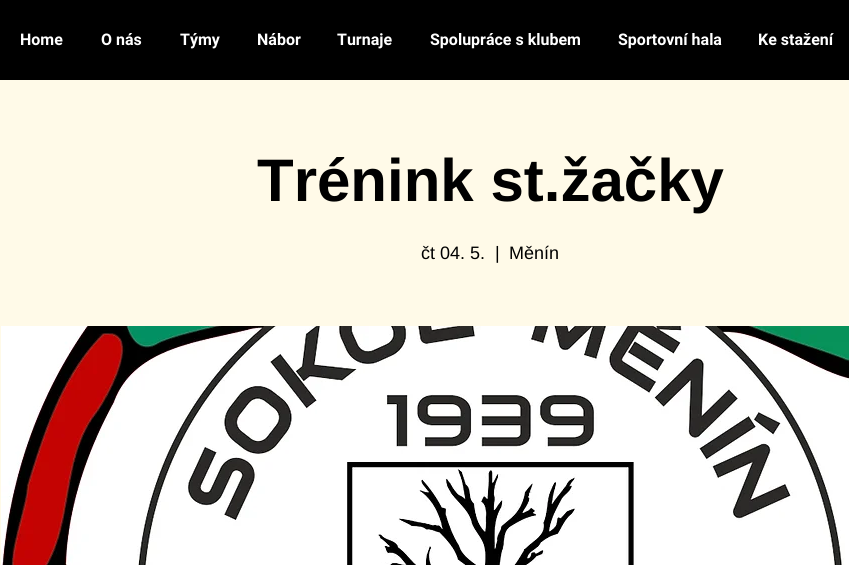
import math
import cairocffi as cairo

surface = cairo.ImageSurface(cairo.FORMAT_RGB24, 849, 565)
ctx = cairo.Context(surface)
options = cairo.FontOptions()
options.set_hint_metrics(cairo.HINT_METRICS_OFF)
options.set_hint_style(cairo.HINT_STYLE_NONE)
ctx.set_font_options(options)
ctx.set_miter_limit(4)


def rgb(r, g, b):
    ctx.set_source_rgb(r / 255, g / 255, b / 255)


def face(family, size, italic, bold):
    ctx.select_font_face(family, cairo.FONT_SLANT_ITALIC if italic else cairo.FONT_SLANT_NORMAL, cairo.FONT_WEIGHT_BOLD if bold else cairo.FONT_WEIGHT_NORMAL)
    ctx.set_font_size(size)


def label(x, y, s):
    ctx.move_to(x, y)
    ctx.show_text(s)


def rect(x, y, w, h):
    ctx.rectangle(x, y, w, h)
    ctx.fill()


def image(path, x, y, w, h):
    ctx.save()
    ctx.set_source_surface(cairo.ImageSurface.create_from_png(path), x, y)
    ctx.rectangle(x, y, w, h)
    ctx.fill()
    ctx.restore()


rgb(255, 250, 232)
ctx.paint()
rgb(0, 0, 0)
rect(0, 0, 849, 80)
face('Roboto', 16, 0, 1)
rgb(255, 255, 255)
label(20, 45, 'Home')
label(101, 45, 'O nás')
label(180, 45, 'Týmy')
label(257, 45, 'Nábor')
label(337, 45, 'Turnaje')
label(430, 45, 'Spolupráce s klubem')
label(618, 45, 'Sportovní hala')
label(758, 45, 'Ke stažení')
face('Liberation Sans', 60, 0, 1)
rgb(0, 0, 0)
label(257, 201, 'Trénink st.žačky')
face('Liberation Sans', 18, 0, 0)
label(421, 259, 'čt 04. 5.')
label(495, 259, '|')
label(509, 259, 'Měnín')
image('image0.png', 1, 326, 848, 239)
surface.write_to_png('render.png')
